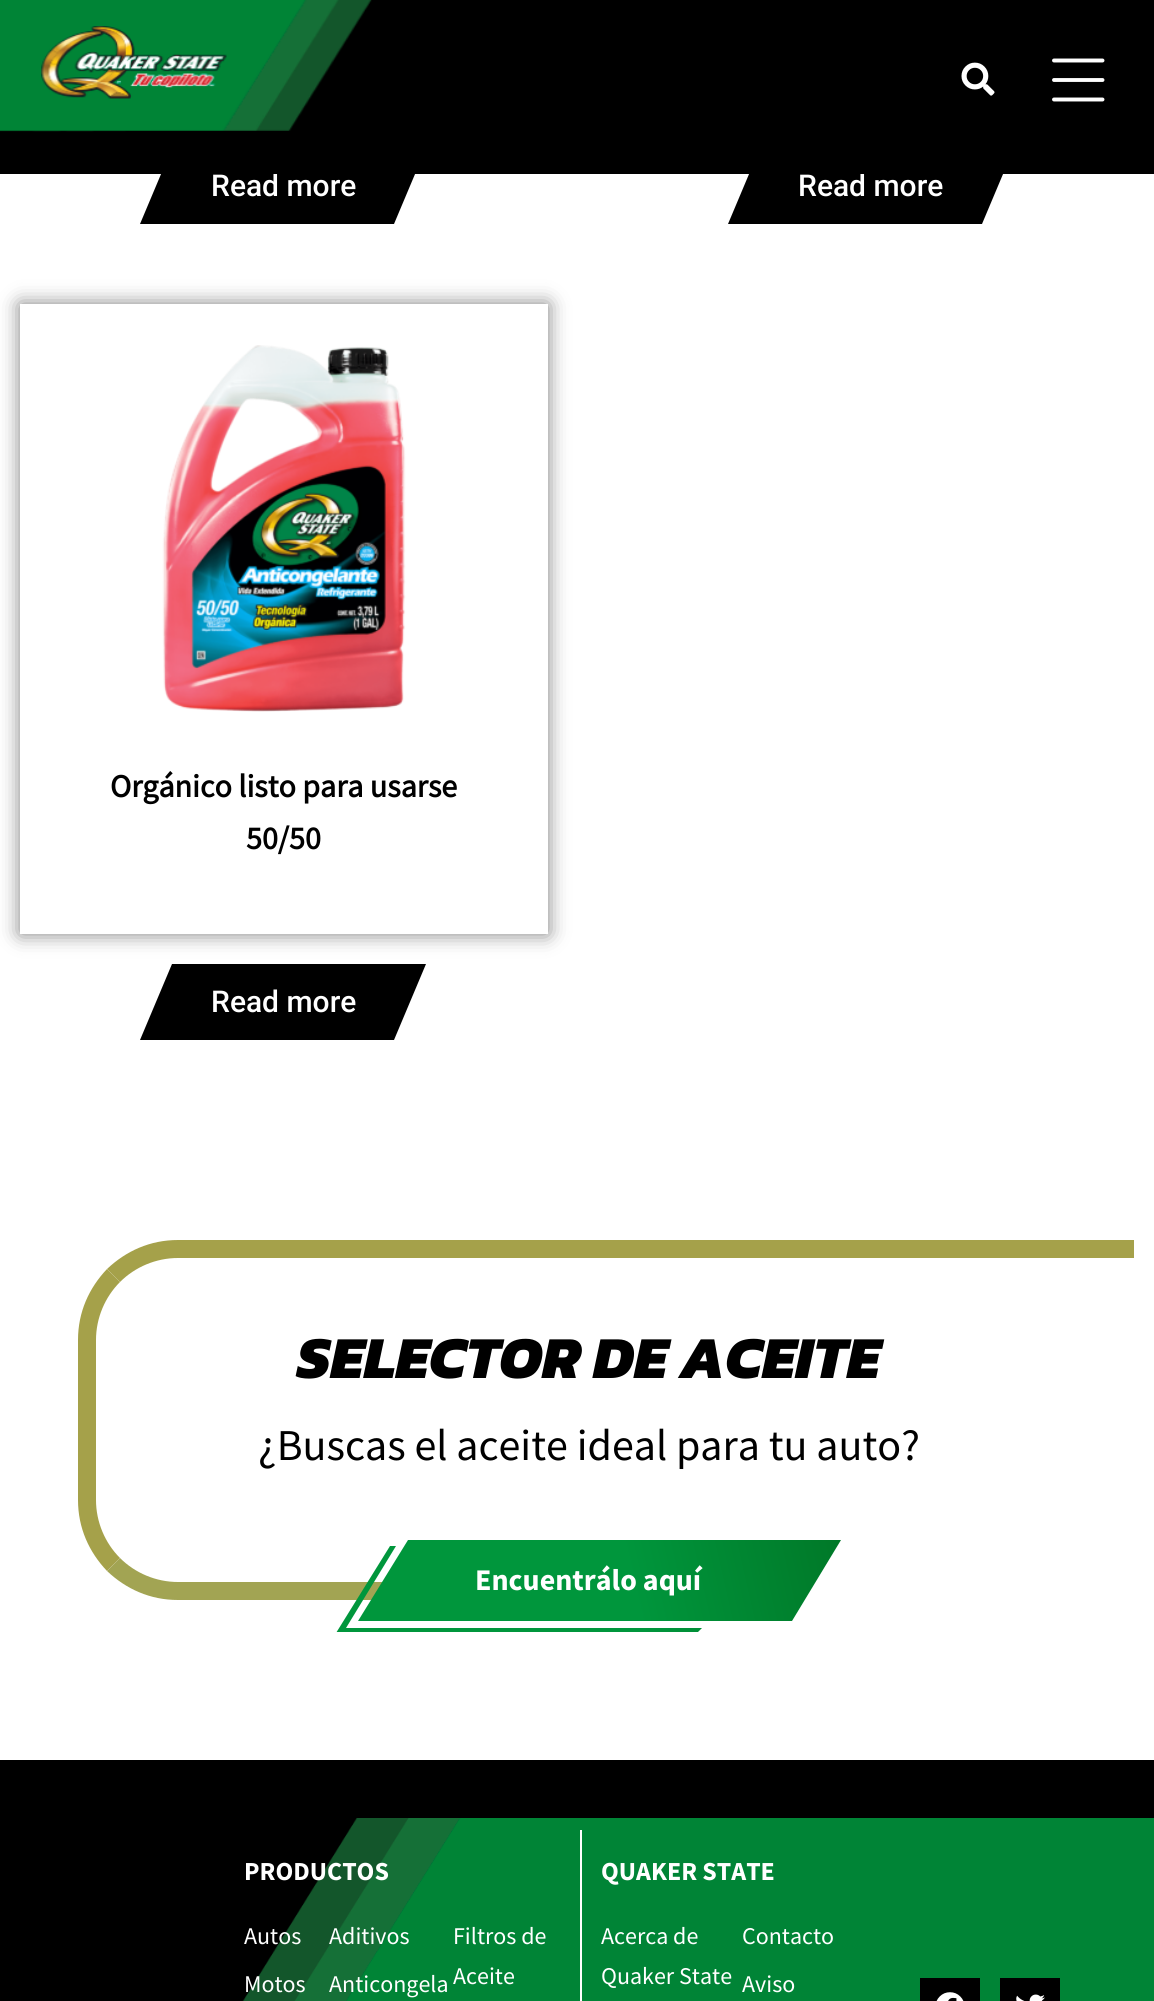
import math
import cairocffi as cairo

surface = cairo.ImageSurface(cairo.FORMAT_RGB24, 1154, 2001)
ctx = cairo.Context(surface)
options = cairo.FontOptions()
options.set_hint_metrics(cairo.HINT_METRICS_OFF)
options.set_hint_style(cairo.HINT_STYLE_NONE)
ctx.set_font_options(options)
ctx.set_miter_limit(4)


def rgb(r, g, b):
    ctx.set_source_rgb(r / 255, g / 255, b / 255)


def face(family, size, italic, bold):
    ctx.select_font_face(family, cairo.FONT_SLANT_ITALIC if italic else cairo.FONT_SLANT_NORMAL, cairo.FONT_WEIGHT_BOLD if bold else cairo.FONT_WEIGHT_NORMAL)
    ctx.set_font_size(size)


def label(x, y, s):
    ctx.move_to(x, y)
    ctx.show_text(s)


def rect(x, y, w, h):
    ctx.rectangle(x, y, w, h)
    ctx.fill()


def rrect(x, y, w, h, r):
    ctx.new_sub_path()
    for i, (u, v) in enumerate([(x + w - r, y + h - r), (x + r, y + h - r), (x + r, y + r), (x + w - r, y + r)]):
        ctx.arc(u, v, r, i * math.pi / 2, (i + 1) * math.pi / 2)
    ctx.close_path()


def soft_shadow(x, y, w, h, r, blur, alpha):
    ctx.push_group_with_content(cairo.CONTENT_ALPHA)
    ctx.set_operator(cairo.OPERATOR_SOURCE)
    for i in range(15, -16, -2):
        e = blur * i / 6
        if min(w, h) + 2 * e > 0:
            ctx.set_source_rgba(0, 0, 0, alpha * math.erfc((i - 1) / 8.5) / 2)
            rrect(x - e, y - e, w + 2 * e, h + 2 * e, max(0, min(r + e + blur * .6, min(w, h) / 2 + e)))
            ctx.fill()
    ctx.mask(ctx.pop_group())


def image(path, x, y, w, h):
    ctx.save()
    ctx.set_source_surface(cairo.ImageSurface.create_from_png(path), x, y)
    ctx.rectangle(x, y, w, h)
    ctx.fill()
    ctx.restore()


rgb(255, 255, 255)
ctx.paint()
rgb(0, 0, 0)
ctx.new_path()
ctx.move_to(172, 224)
ctx.line_to(140, 224)
ctx.line_to(172, 148)
ctx.close_path()
ctx.fill()
rect(172, 174, 222, 50)
face('Roboto Medium', 30, 0, 0)
rgb(255, 255, 255)
label(211, 196, 'Read more')
rgb(0, 0, 0)
ctx.new_path()
ctx.move_to(394, 148)
ctx.line_to(426, 148)
ctx.line_to(394, 224)
ctx.close_path()
ctx.fill()
ctx.new_path()
ctx.move_to(760, 224)
ctx.line_to(728, 224)
ctx.line_to(760, 148)
ctx.close_path()
ctx.fill()
rect(760, 174, 222, 50)
rgb(255, 255, 255)
label(798, 196, 'Read more')
rgb(0, 0, 0)
ctx.new_path()
ctx.move_to(982, 148)
ctx.line_to(1014, 148)
ctx.line_to(982, 224)
ctx.close_path()
ctx.fill()
rect(0, 0, 1154, 174)
image('image0.png', 0, 0, 372, 132)
image('image1.png', 961, 62, 34, 34)
ctx.new_path()
ctx.move_to(1054, 99.5)
ctx.line_to(1102.5, 99.5)
ctx.move_to(1054, 80)
ctx.line_to(1102.5, 80)
ctx.move_to(1054, 60.5)
ctx.line_to(1102.5, 60.5)
rgb(255, 255, 255)
ctx.set_line_width(3.9)
ctx.set_line_cap(cairo.LINE_CAP_ROUND)
ctx.stroke()
ctx.save()
ctx.set_fill_rule(cairo.FILL_RULE_EVEN_ODD)
ctx.new_path()
ctx.move_to(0, 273)
ctx.line_to(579, 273)
ctx.line_to(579, 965)
ctx.line_to(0, 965)
ctx.close_path()
ctx.move_to(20, 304)
ctx.line_to(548, 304)
ctx.line_to(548, 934)
ctx.line_to(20, 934)
ctx.close_path()
ctx.clip()
rgb(0, 0, 0)
soft_shadow(20, 304, 528, 630, 0, 10, 0.5)
ctx.restore()
image('image2.png', 162, 345, 244, 367)
face('Source Sans Pro', 32, 0, 1)
rgb(0, 0, 0)
label(110, 797, 'Orgánico listo para usarse')
label(246, 849, '50/50')
rect(172, 964, 222, 76)
ctx.new_path()
ctx.move_to(172, 1040)
ctx.line_to(140, 1040)
ctx.line_to(172, 964)
ctx.close_path()
ctx.fill()
face('Roboto Medium', 30, 0, 0)
rgb(255, 255, 255)
label(211, 1012, 'Read more')
rgb(0, 0, 0)
ctx.new_path()
ctx.move_to(394, 964)
ctx.line_to(426, 964)
ctx.line_to(394, 1040)
ctx.close_path()
ctx.fill()
rgb(165, 161, 74)
ctx.new_path()
ctx.move_to(178, 1240)
ctx.curve_to(150, 1240, 126, 1251, 107, 1269)
ctx.line_to(120, 1282)
ctx.curve_to(135, 1267, 156, 1258, 178, 1258)
ctx.line_to(1134, 1258)
ctx.line_to(1134, 1240)
ctx.close_path()
ctx.fill()
rgb(162, 164, 83)
ctx.new_path()
ctx.move_to(1134, 1600)
ctx.line_to(1134, 1582)
ctx.line_to(178, 1582)
ctx.curve_to(156, 1582, 135, 1573, 120, 1558)
ctx.line_to(107, 1571)
ctx.curve_to(126, 1589, 150, 1600, 178, 1600)
ctx.close_path()
ctx.fill()
rgb(165, 161, 74)
ctx.new_path()
ctx.move_to(78, 1340)
ctx.line_to(78, 1500)
ctx.curve_to(78, 1528, 89, 1552, 107, 1571)
ctx.line_to(120, 1558)
ctx.curve_to(105, 1543, 96, 1522, 96, 1500)
ctx.line_to(96, 1340)
ctx.curve_to(96, 1318, 105, 1297, 120, 1282)
ctx.line_to(107, 1269)
ctx.curve_to(89, 1288, 78, 1312, 78, 1340)
ctx.close_path()
ctx.fill()
face('Kanit ExtraBold', 60, 1, 0)
rgb(0, 0, 0)
label(297, 1378, 'SELECTOR DE ACEITE')
face('Source Sans Pro', 44, 0, 0)
label(258, 1460, '¿Buscas el aceite ideal para tu auto?')
rgb(255, 255, 255)
rect(803, 1582, 331, 18)
ctx.save()
ctx.rectangle(336, 1540, 506, 92)
ctx.clip()
gradient = cairo.LinearGradient(896, 1540, 636, 1599)
gradient.add_color_stop_rgba(0, 0, 0.443, 0.137, 1)
gradient.add_color_stop_rgba(1, 0, 0.588, 0.235, 1)
ctx.set_source(gradient)
ctx.set_fill_rule(cairo.FILL_RULE_EVEN_ODD)
ctx.new_path()
ctx.move_to(841, 1540)
ctx.line_to(408, 1540)
ctx.line_to(358, 1621)
ctx.line_to(792, 1621)
ctx.close_path()
ctx.move_to(390, 1546)
ctx.line_to(396, 1546)
ctx.line_to(346, 1628)
ctx.line_to(702, 1628)
ctx.line_to(697, 1633)
ctx.line_to(336, 1633)
ctx.close_path()
ctx.fill()
ctx.restore()
face('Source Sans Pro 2', 30, 0, 1)
label(475, 1590, 'Encuentrálo aquí')
rgb(0, 0, 0)
rect(0, 1760, 1154, 241)
image('image3.png', 242, 1818, 912, 183)
rgb(255, 255, 255)
rect(580, 1830, 2, 171)
face('Source Sans Pro 2', 26, 0, 1)
label(244, 1880, 'PRODUCTOS')
face('Source Sans Pro', 24, 0, 0)
label(244, 1944, 'Autos')
label(244, 1992, 'Motos')
label(329, 1944, 'Aditivos')
label(329, 1992, 'Anticongela')
label(453, 1944, 'Filtros de')
label(453, 1984, 'Aceite')
face('Source Sans Pro 2', 26, 0, 1)
label(601, 1880, 'QUAKER STATE')
face('Source Sans Pro', 24, 0, 0)
label(601, 1944, 'Acerca de')
label(601, 1984, 'Quaker State')
label(742, 1944, 'Contacto')
label(742, 1992, 'Aviso')
rgb(0, 0, 0)
rect(920, 1978, 60, 23)
image('image4.png', 936, 1992, 28, 9)
rect(1000, 1978, 60, 23)
image('image5.png', 1016, 1994, 29, 7)
surface.write_to_png('render.png')
